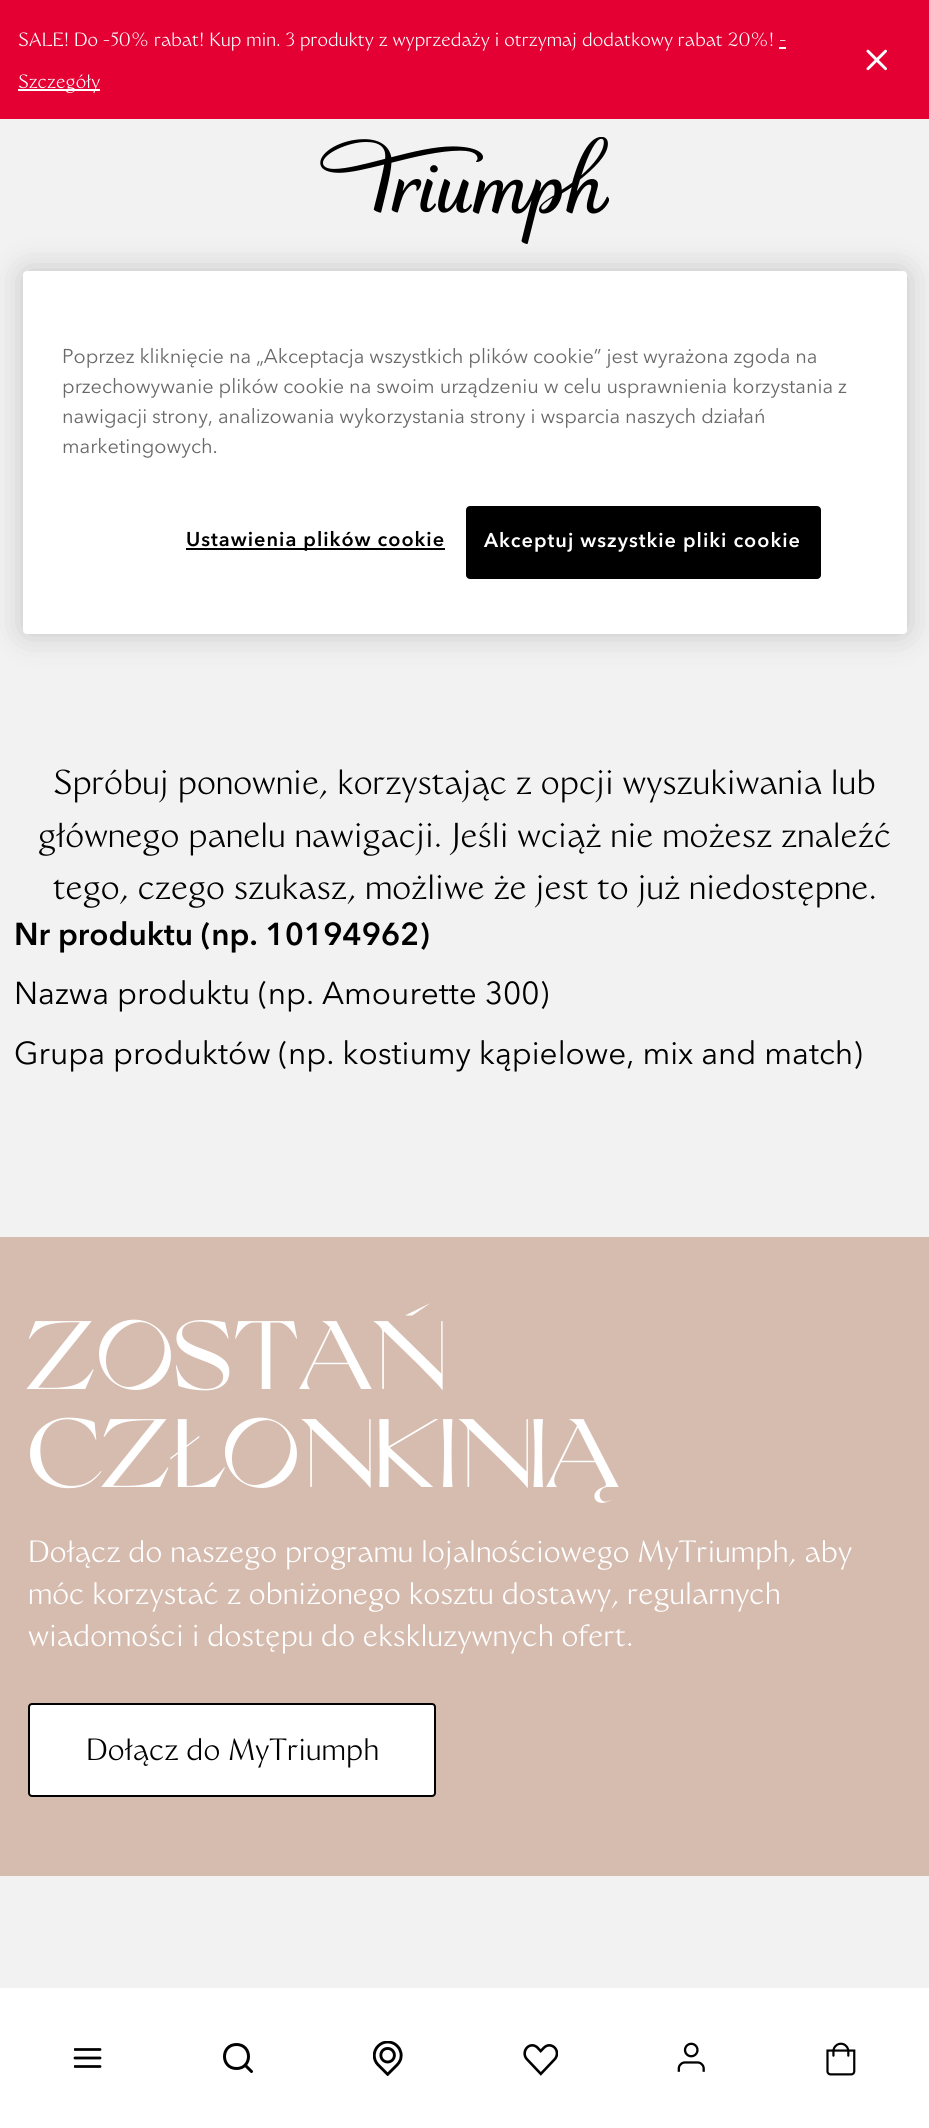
import math
import cairocffi as cairo

surface = cairo.ImageSurface(cairo.FORMAT_RGB24, 929, 2128)
ctx = cairo.Context(surface)
options = cairo.FontOptions()
options.set_hint_metrics(cairo.HINT_METRICS_OFF)
options.set_hint_style(cairo.HINT_STYLE_NONE)
ctx.set_font_options(options)
ctx.set_miter_limit(4)


def rgb(r, g, b):
    ctx.set_source_rgb(r / 255, g / 255, b / 255)


def face(family, size, italic, bold):
    ctx.select_font_face(family, cairo.FONT_SLANT_ITALIC if italic else cairo.FONT_SLANT_NORMAL, cairo.FONT_WEIGHT_BOLD if bold else cairo.FONT_WEIGHT_NORMAL)
    ctx.set_font_size(size)


def label(x, y, s):
    ctx.move_to(x, y)
    ctx.show_text(s)


def tracked(x, y, s, letter, word):
    ctx.move_to(x, y)
    for ch in s:
        ctx.show_text(ch)
        ctx.rel_move_to(letter + word * (ch == ' '), 0)


def rect(x, y, w, h):
    ctx.rectangle(x, y, w, h)
    ctx.fill()


def rrect(x, y, w, h, r):
    ctx.new_sub_path()
    for i, (u, v) in enumerate([(x + w - r, y + h - r), (x + r, y + h - r), (x + r, y + r), (x + w - r, y + r)]):
        ctx.arc(u, v, r, i * math.pi / 2, (i + 1) * math.pi / 2)
    ctx.close_path()


def soft_shadow(x, y, w, h, r, blur, alpha):
    ctx.push_group_with_content(cairo.CONTENT_ALPHA)
    ctx.set_operator(cairo.OPERATOR_SOURCE)
    for i in range(15, -16, -2):
        e = blur * i / 6
        if min(w, h) + 2 * e > 0:
            ctx.set_source_rgba(0, 0, 0, alpha * math.erfc((i - 1) / 8.5) / 2)
            rrect(x - e, y - e, w + 2 * e, h + 2 * e, max(0, min(r + e + blur * .6, min(w, h) / 2 + e)))
            ctx.fill()
    ctx.mask(ctx.pop_group())


def image(path, x, y, w, h):
    ctx.save()
    ctx.set_source_surface(cairo.ImageSurface.create_from_png(path), x, y)
    ctx.rectangle(x, y, w, h)
    ctx.fill()
    ctx.restore()


rgb(242, 242, 242)
ctx.paint()
rgb(228, 0, 50)
rect(0, 0, 929, 119)
face('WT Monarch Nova', 17.5, 0, 0)
rgb(255, 255, 255)
label(18, 46, 'SALE! Do -50% rabat! Kup min. 3 produkty z wyprzedaży i otrzymaj dodatkowy rabat 20%! -')
rect(18, 89, 82, 2)
label(18, 88, 'Szczegóły')
rect(779, 47, 7, 2)
image('image0.png', 866, 49, 21, 22)
image('image1.png', 320, 137, 289, 107)
rect(0, 1988, 929, 140)
ctx.new_path()
ctx.move_to(75, 2058)
ctx.line_to(100, 2058)
rgb(0, 0, 0)
ctx.set_line_width(2.8)
ctx.set_line_cap(cairo.LINE_CAP_ROUND)
ctx.set_line_join(cairo.LINE_JOIN_ROUND)
ctx.stroke()
ctx.save()
ctx.rectangle(74, 2048, 28, 21)
ctx.clip()
ctx.new_path()
ctx.move_to(75, 2049.5)
ctx.line_to(100, 2049.5)
ctx.move_to(75, 2066.5)
ctx.line_to(100, 2066.5)
ctx.stroke()
ctx.restore()
ctx.new_path()
ctx.move_to(236.5, 2068.5)
ctx.curve_to(252.5, 2068.5, 252.5, 2044.5, 236.5, 2044.5)
ctx.curve_to(220.5, 2044.5, 220.5, 2068.5, 236.5, 2068.5)
ctx.close_path()
ctx.move_to(251.5, 2071.5)
ctx.line_to(245, 2065)
ctx.set_line_width(3)
ctx.stroke()
image('image2.png', 373, 2041, 30, 35)
image('image3.png', 523, 2044, 35, 32)
image('image4.png', 677, 2042, 28, 30)
image('image5.png', 826, 2042, 30, 34)
face('WT Monarch Nova', 31.5, 0, 0)
label(53, 794, 'Spróbuj ponownie, korzystając z opcji wyszukiwania lub')
label(38, 847, 'głównego panelu nawigacji. Jeśli wciąż nie możesz znaleźć')
label(53, 899, 'tego, czego szukasz, możliwe że jest to już niedostępne.')
face('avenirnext', 31.5, 0, 1)
label(14, 945, 'Nr produktu (np. 10194962)')
face('avenirnext', 31.5, 0, 0)
label(14, 1004, 'Nazwa produktu (np. Amourette 300)')
label(14, 1064, 'Grupa produktów (np. kostiumy kąpielowe, mix and match)')
rgb(214, 187, 175)
rect(0, 1237, 929, 639)
face('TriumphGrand', 98, 0, 0)
rgb(255, 255, 255)
tracked(28, 1389, 'ZOSTAŃ', -2, 0)
tracked(28, 1487, 'CZŁONKINIĄ', -2, 0)
face('WT Monarch Nova', 28, 0, 0)
label(28, 1562, 'Dołącz do naszego programu lojalnościowego MyTriumph, aby')
label(28, 1604, 'móc korzystać z obniżonego kosztu dostawy, regularnych')
label(28, 1646, 'wiadomości i dostępu do ekskluzywnych ofert.')
rrect(29, 1704, 406, 92, 3)
ctx.fill_preserve()
rgb(0, 0, 0)
ctx.set_line_width(2)
ctx.set_line_cap(cairo.LINE_CAP_BUTT)
ctx.set_line_join(cairo.LINE_JOIN_MITER)
ctx.stroke()
label(86, 1760, 'Dołącz do MyTriumph')
rgb(0, 0, 0)
soft_shadow(23, 271, 884, 363, 4, 16, 0.2)
rgb(255, 255, 255)
rrect(23, 271, 884, 363, 4)
ctx.fill()
face('avenirnext', 19.9, 0, 0)
rgb(105, 105, 105)
label(62, 363, 'Poprzez kliknięcie na „Akceptacja wszystkich plików cookie” jest wyrażona zgoda na')
label(62, 393, 'przechowywanie plików cookie na swoim urządzeniu w celu usprawnienia korzystania z')
label(62, 423, 'nawigacji strony, analizowania wykorzystania strony i wsparcia naszych działań')
label(62, 453, 'marketingowych.')
rgb(0, 0, 0)
rect(186, 548, 259, 2)
face('avenirnext', 19.9, 0, 1)
tracked(186, 546, 'Ustawienia plików cookie', 1, 0)
rrect(467, 507, 353, 71, 3)
ctx.fill_preserve()
ctx.stroke()
rgb(255, 255, 255)
tracked(484, 547, 'Akceptuj wszystkie pliki cookie', 1, 0)
surface.write_to_png('render.png')
